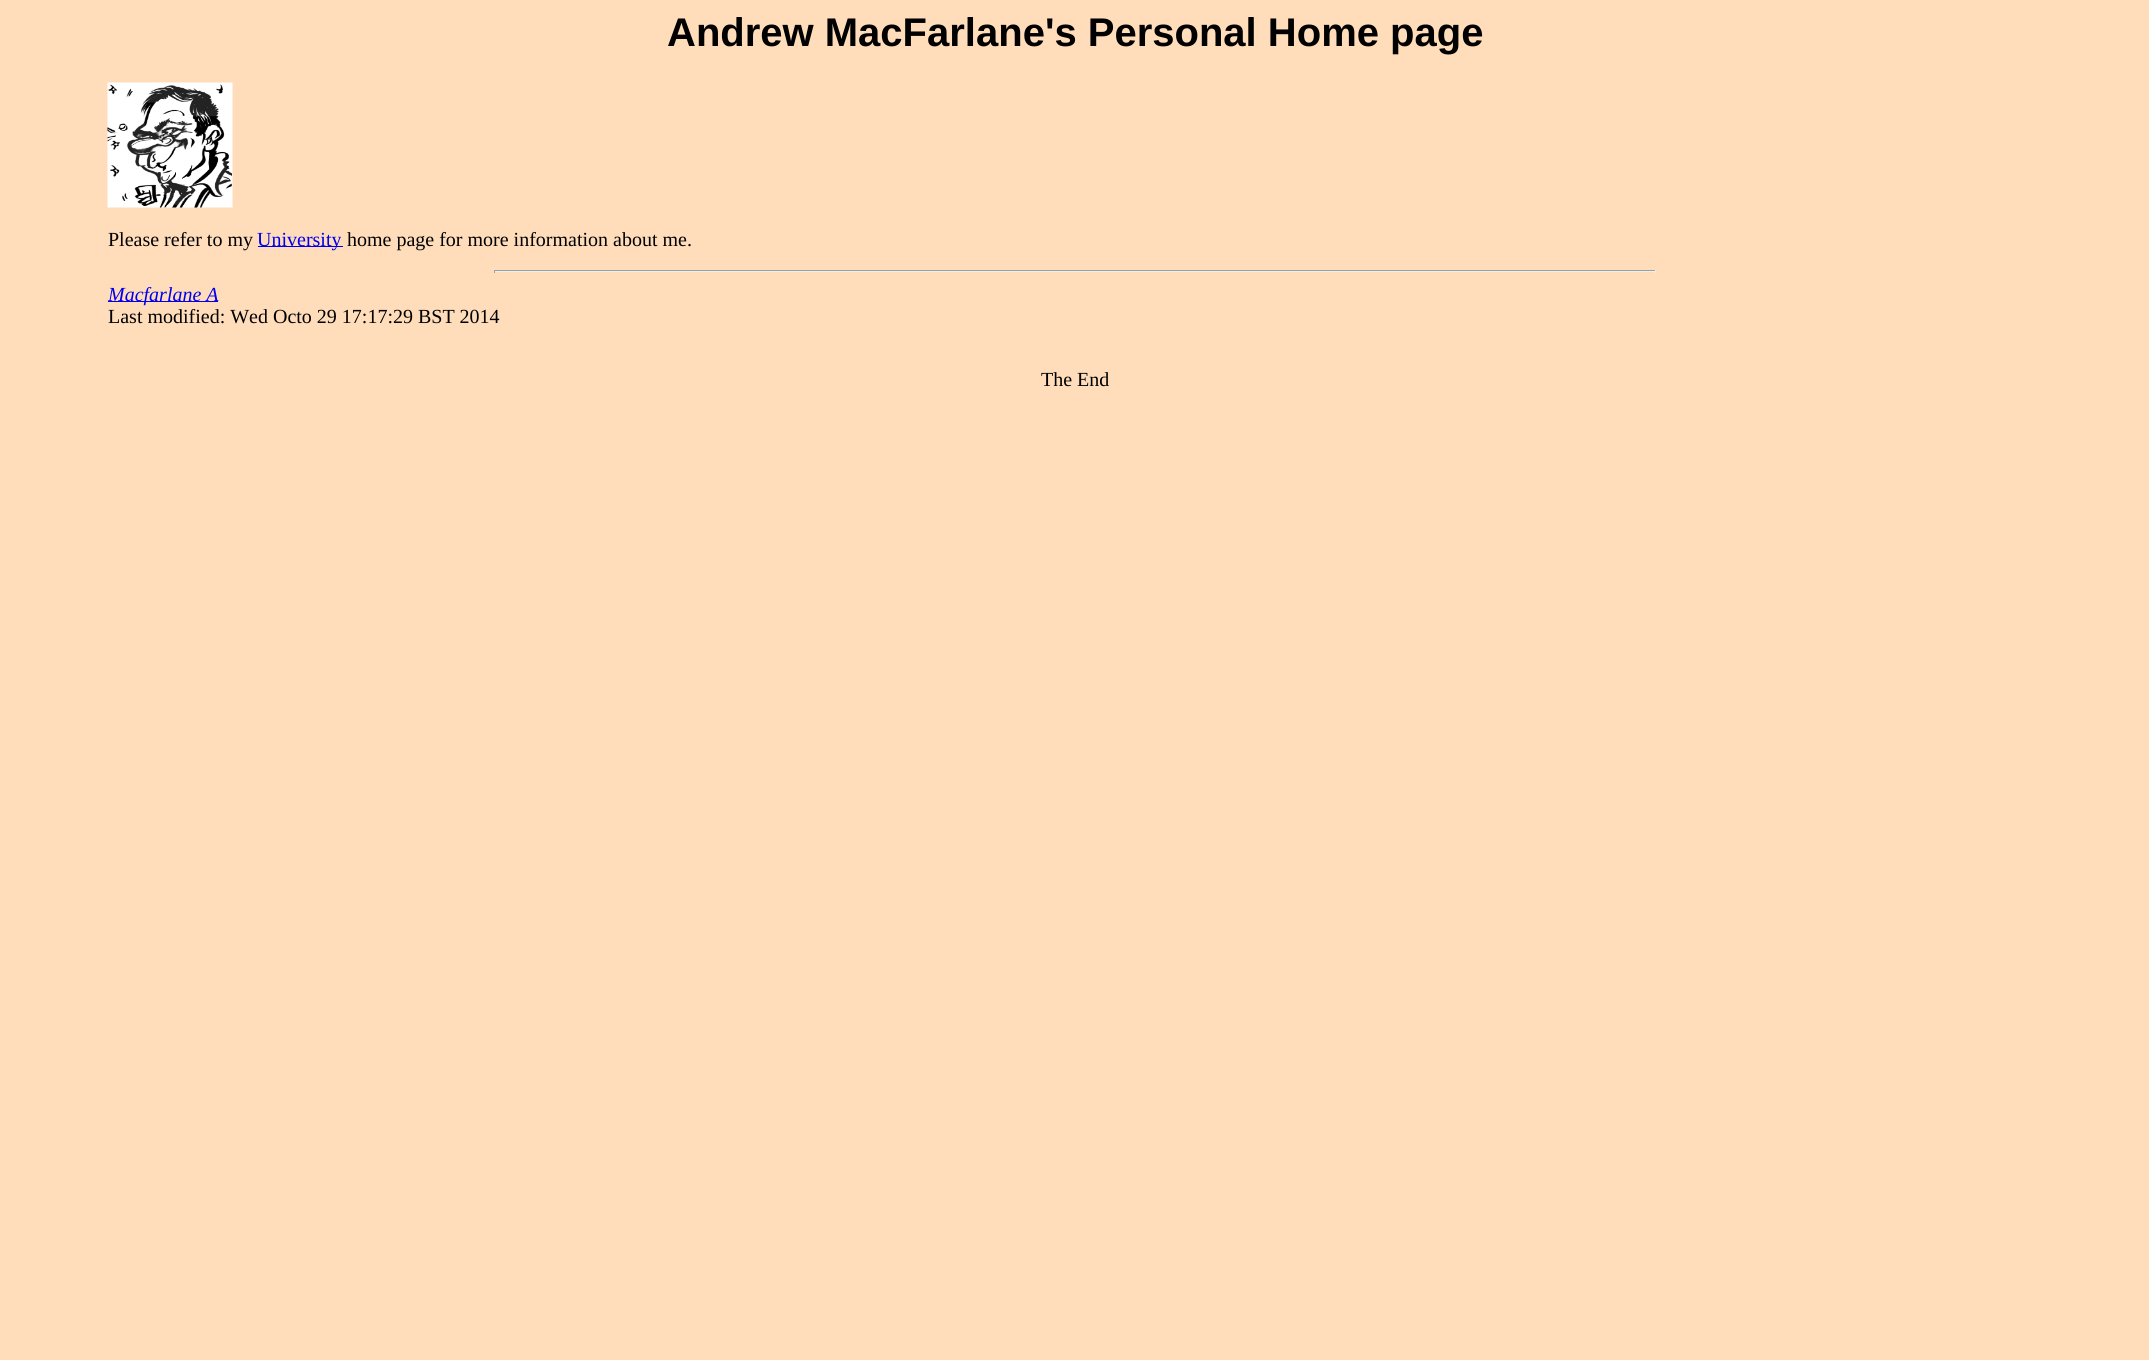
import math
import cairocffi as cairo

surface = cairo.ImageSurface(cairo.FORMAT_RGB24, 2149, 1360)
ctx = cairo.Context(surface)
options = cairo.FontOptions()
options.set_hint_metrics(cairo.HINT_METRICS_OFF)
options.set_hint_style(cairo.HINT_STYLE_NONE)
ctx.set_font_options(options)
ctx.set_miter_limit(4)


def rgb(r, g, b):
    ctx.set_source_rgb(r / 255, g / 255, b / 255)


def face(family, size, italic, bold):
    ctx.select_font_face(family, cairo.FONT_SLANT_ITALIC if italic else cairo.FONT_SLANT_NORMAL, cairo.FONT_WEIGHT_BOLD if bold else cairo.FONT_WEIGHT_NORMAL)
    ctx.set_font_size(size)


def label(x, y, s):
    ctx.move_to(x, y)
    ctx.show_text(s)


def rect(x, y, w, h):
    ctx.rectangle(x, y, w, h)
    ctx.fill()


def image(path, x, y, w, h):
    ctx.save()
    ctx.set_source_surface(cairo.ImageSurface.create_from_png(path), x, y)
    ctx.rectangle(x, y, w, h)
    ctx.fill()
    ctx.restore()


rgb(255, 221, 187)
ctx.paint()
face('Liberation Sans', 40, 0, 1)
rgb(0, 0, 0)
label(667, 46, 'Andrew MacFarlane\'s Personal Home page')
image('image0.png', 107, 82, 126, 126)
face('Liberation Serif', 20, 0, 0)
label(108, 246, 'Please refer to my')
rgb(0, 0, 238)
rect(258, 246, 85, 1)
label(257, 246, 'University')
rgb(0, 0, 0)
label(347, 246, 'home page for more information about me.')
rgb(159, 159, 159)
rect(494, 270, 1162, 1)
rgb(238, 238, 238)
rect(1655, 270, 1, 3)
rect(494, 271, 1162, 1)
rgb(159, 159, 159)
rect(494, 270, 1, 3)
rgb(0, 0, 238)
rect(108, 301, 110, 1)
face('Liberation Serif', 20, 1, 0)
label(108, 301, 'Macfarlane A')
face('Liberation Serif', 20, 0, 0)
rgb(0, 0, 0)
label(108, 323, 'Last modified: Wed Octo 29 17:17:29 BST 2014')
label(1041, 386, 'The End')
surface.write_to_png('render.png')
